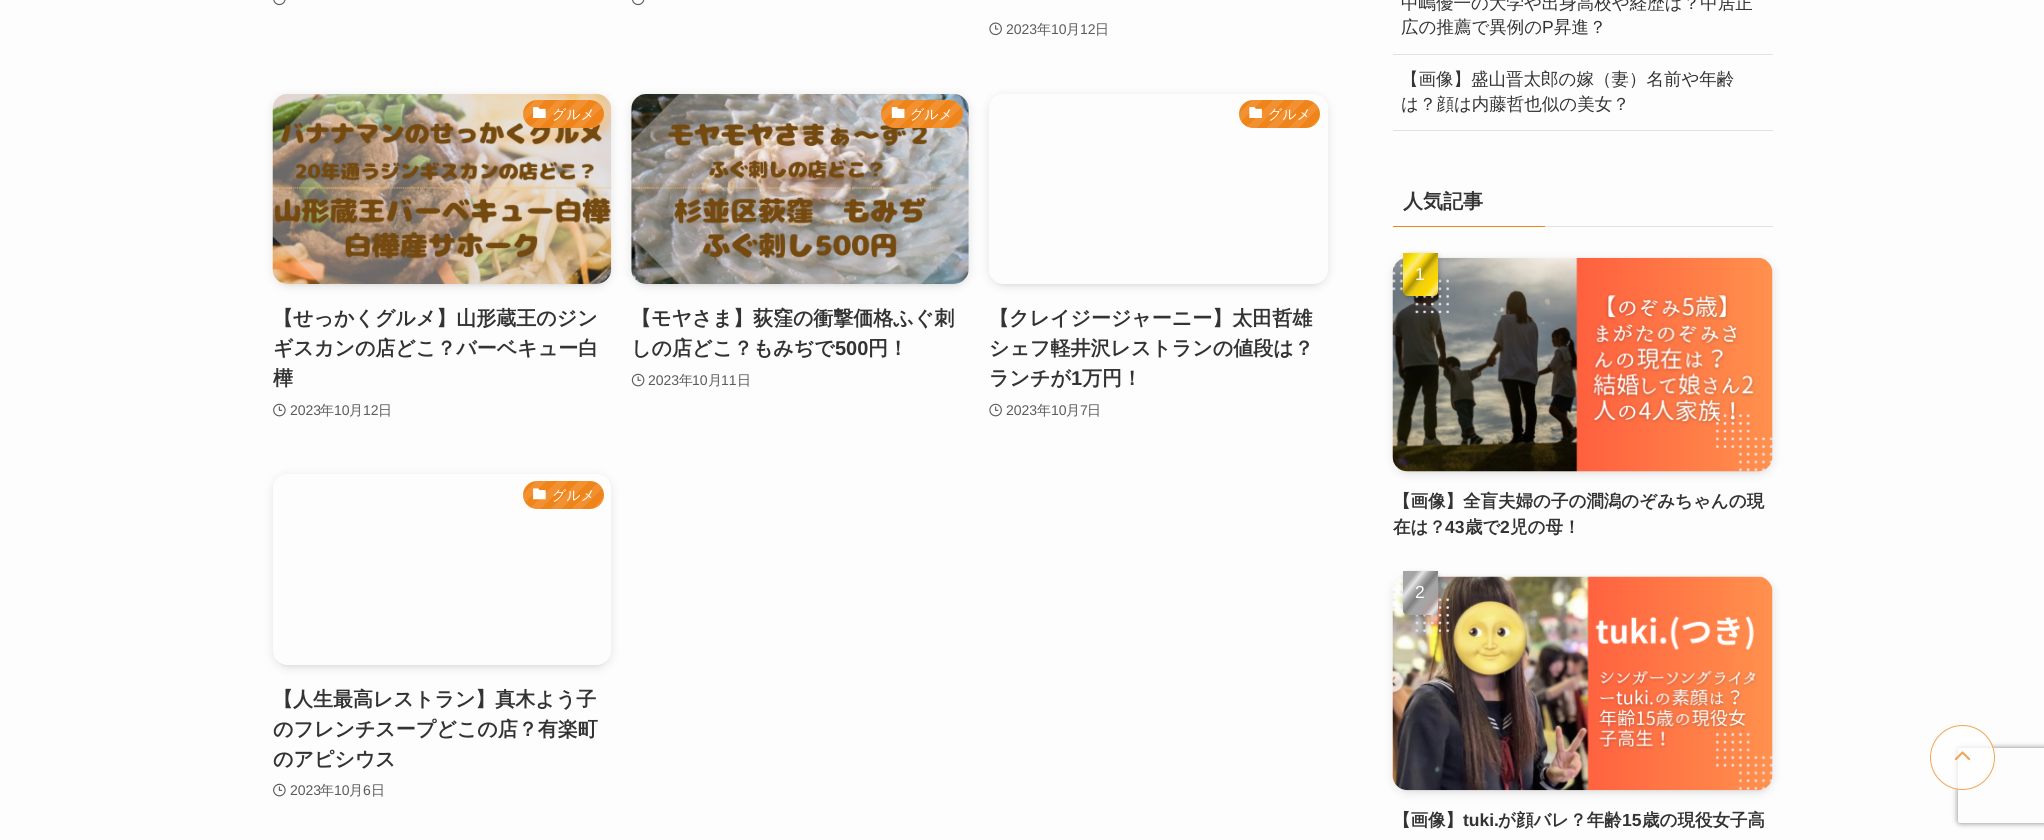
import math
import cairocffi as cairo

surface = cairo.ImageSurface(cairo.FORMAT_RGB24, 2044, 840)
ctx = cairo.Context(surface)
options = cairo.FontOptions()
options.set_hint_metrics(cairo.HINT_METRICS_OFF)
options.set_hint_style(cairo.HINT_STYLE_NONE)
ctx.set_font_options(options)
ctx.set_miter_limit(4)


def rgb(r, g, b):
    ctx.set_source_rgb(r / 255, g / 255, b / 255)


def face(family, size, italic, bold):
    ctx.select_font_face(family, cairo.FONT_SLANT_ITALIC if italic else cairo.FONT_SLANT_NORMAL, cairo.FONT_WEIGHT_BOLD if bold else cairo.FONT_WEIGHT_NORMAL)
    ctx.set_font_size(size)


def label(x, y, s):
    ctx.move_to(x, y)
    ctx.show_text(s)


def rect(x, y, w, h):
    ctx.rectangle(x, y, w, h)
    ctx.fill()


def rrect(x, y, w, h, r):
    ctx.new_sub_path()
    for i, (u, v) in enumerate([(x + w - r, y + h - r), (x + r, y + h - r), (x + r, y + r), (x + w - r, y + r)]):
        ctx.arc(u, v, r, i * math.pi / 2, (i + 1) * math.pi / 2)
    ctx.close_path()


def soft_shadow(x, y, w, h, r, blur, alpha):
    ctx.push_group_with_content(cairo.CONTENT_ALPHA)
    ctx.set_operator(cairo.OPERATOR_SOURCE)
    for i in range(15, -16, -2):
        e = blur * i / 6
        if min(w, h) + 2 * e > 0:
            ctx.set_source_rgba(0, 0, 0, alpha * math.erfc((i - 1) / 8.5) / 2)
            rrect(x - e, y - e, w + 2 * e, h + 2 * e, max(0, min(r + e + blur * .6, min(w, h) / 2 + e)))
            ctx.fill()
    ctx.mask(ctx.pop_group())


def image(path, x, y, w, h):
    ctx.save()
    ctx.set_source_surface(cairo.ImageSurface.create_from_png(path), x, y)
    ctx.rectangle(x, y, w, h)
    ctx.fill()
    ctx.restore()


rgb(253, 253, 253)
ctx.paint()
image('image0.png', 273, 0, 13, 6)
image('image1.png', 632, 0, 13, 6)
image('image2.png', 989, 22, 13, 14)
face('Liberation Sans', 14, 0, 0)
rgb(91, 91, 91)
label(1006, 34, '2023')
face('WenQuanYi Zen Hei Medium', 14, 0, 0)
label(1037, 34, '年')
face('Liberation Sans', 14, 0, 0)
label(1051, 34, '10')
face('WenQuanYi Zen Hei Medium', 14, 0, 0)
label(1066, 34, '月')
face('Liberation Sans', 14, 0, 0)
label(1080, 34, '12')
face('WenQuanYi Zen Hei Medium', 14, 0, 0)
label(1095, 34, '日')
rgb(0, 0, 0)
soft_shadow(278, 104, 328, 180, 10, 2.5, 0.1)
soft_shadow(273, 96, 338, 190, 15, 5, 0.1)
image('image3.png', 272, 94, 340, 190)
rgb(239, 133, 26)
rrect(523, 100, 81, 28, 14)
ctx.fill()
gradient = cairo.LinearGradient(590, 141, 527, 77)
gradient.add_color_stop_rgba(0, 1, 1, 1, 0.1)
gradient.add_color_stop_rgba(0.08, 1, 1, 1, 0.1)
gradient.add_color_stop_rgba(0.08, 1, 1, 1, 0)
gradient.add_color_stop_rgba(0.17, 1, 1, 1, 0)
gradient.add_color_stop_rgba(0.17, 1, 1, 1, 0.1)
gradient.add_color_stop_rgba(0.25, 1, 1, 1, 0.1)
gradient.add_color_stop_rgba(0.25, 1, 1, 1, 0)
gradient.add_color_stop_rgba(0.33, 1, 1, 1, 0)
gradient.add_color_stop_rgba(0.33, 1, 1, 1, 0.1)
gradient.add_color_stop_rgba(0.42, 1, 1, 1, 0.1)
gradient.add_color_stop_rgba(0.42, 1, 1, 1, 0)
gradient.add_color_stop_rgba(0.5, 1, 1, 1, 0)
gradient.add_color_stop_rgba(0.5, 1, 1, 1, 0.1)
gradient.add_color_stop_rgba(0.58, 1, 1, 1, 0.1)
gradient.add_color_stop_rgba(0.58, 1, 1, 1, 0)
gradient.add_color_stop_rgba(0.67, 1, 1, 1, 0)
gradient.add_color_stop_rgba(0.67, 1, 1, 1, 0.1)
gradient.add_color_stop_rgba(0.75, 1, 1, 1, 0.1)
gradient.add_color_stop_rgba(0.75, 1, 1, 1, 0)
gradient.add_color_stop_rgba(0.83, 1, 1, 1, 0)
gradient.add_color_stop_rgba(0.83, 1, 1, 1, 0.1)
gradient.add_color_stop_rgba(0.92, 1, 1, 1, 0.1)
gradient.add_color_stop_rgba(0.92, 1, 1, 1, 0)
gradient.add_color_stop_rgba(1, 0, 0, 0, 0)
ctx.set_source(gradient)
rrect(523, 100, 81, 28, 14)
ctx.fill()
image('image4.png', 533, 107, 13, 11)
rgb(255, 255, 255)
label(552, 119, 'グルメ')
face('WenQuanYi Zen Hei', 20, 0, 1)
rgb(51, 51, 51)
label(273, 325, '【せっかくグルメ】山形蔵王のジン')
label(273, 355, 'ギスカンの店どこ？バーベキュー白')
label(273, 385, '樺')
image('image5.png', 273, 403, 13, 14)
face('Liberation Sans', 14, 0, 0)
rgb(91, 91, 91)
label(290, 415, '2023')
face('WenQuanYi Zen Hei Medium', 14, 0, 0)
label(320, 415, '年')
face('Liberation Sans', 14, 0, 0)
label(334, 415, '10')
face('WenQuanYi Zen Hei Medium', 14, 0, 0)
label(349, 415, '月')
face('Liberation Sans', 14, 0, 0)
label(363, 415, '12')
face('WenQuanYi Zen Hei Medium', 14, 0, 0)
label(378, 415, '日')
rgb(0, 0, 0)
soft_shadow(636, 104, 328, 180, 10, 2.5, 0.1)
soft_shadow(631, 96, 338, 190, 15, 5, 0.1)
image('image6.png', 631, 94, 338, 190)
rgb(239, 133, 26)
rrect(881, 100, 82, 28, 14)
ctx.fill()
gradient = cairo.LinearGradient(949, 141, 885, 77)
gradient.add_color_stop_rgba(0, 1, 1, 1, 0.1)
gradient.add_color_stop_rgba(0.08, 1, 1, 1, 0.1)
gradient.add_color_stop_rgba(0.08, 1, 1, 1, 0)
gradient.add_color_stop_rgba(0.17, 1, 1, 1, 0)
gradient.add_color_stop_rgba(0.17, 1, 1, 1, 0.1)
gradient.add_color_stop_rgba(0.25, 1, 1, 1, 0.1)
gradient.add_color_stop_rgba(0.25, 1, 1, 1, 0)
gradient.add_color_stop_rgba(0.33, 1, 1, 1, 0)
gradient.add_color_stop_rgba(0.33, 1, 1, 1, 0.1)
gradient.add_color_stop_rgba(0.42, 1, 1, 1, 0.1)
gradient.add_color_stop_rgba(0.42, 1, 1, 1, 0)
gradient.add_color_stop_rgba(0.5, 1, 1, 1, 0)
gradient.add_color_stop_rgba(0.5, 1, 1, 1, 0.1)
gradient.add_color_stop_rgba(0.58, 1, 1, 1, 0.1)
gradient.add_color_stop_rgba(0.58, 1, 1, 1, 0)
gradient.add_color_stop_rgba(0.67, 1, 1, 1, 0)
gradient.add_color_stop_rgba(0.67, 1, 1, 1, 0.1)
gradient.add_color_stop_rgba(0.75, 1, 1, 1, 0.1)
gradient.add_color_stop_rgba(0.75, 1, 1, 1, 0)
gradient.add_color_stop_rgba(0.83, 1, 1, 1, 0)
gradient.add_color_stop_rgba(0.83, 1, 1, 1, 0.1)
gradient.add_color_stop_rgba(0.92, 1, 1, 1, 0.1)
gradient.add_color_stop_rgba(0.92, 1, 1, 1, 0)
gradient.add_color_stop_rgba(1, 0, 0, 0, 0)
ctx.set_source(gradient)
rrect(881, 100, 82, 28, 14)
ctx.fill()
image('image7.png', 891, 107, 14, 11)
rgb(255, 255, 255)
label(910, 119, 'グルメ')
face('WenQuanYi Zen Hei', 20, 0, 1)
rgb(51, 51, 51)
label(631, 325, '【モヤさま】荻窪の衝撃価格ふぐ刺')
label(631, 355, 'しの店どこ？もみぢで')
face('Liberation Sans', 20, 0, 1)
label(835, 355, '500')
face('WenQuanYi Zen Hei', 20, 0, 1)
label(868, 355, '円！')
image('image8.png', 631, 373, 14, 14)
face('Liberation Sans', 14, 0, 0)
rgb(91, 91, 91)
label(648, 385, '2023')
face('WenQuanYi Zen Hei Medium', 14, 0, 0)
label(679, 385, '年')
face('Liberation Sans', 14, 0, 0)
label(692, 385, '10')
face('WenQuanYi Zen Hei Medium', 14, 0, 0)
label(708, 385, '月')
face('Liberation Sans', 14, 0, 0)
label(721, 385, '11')
face('WenQuanYi Zen Hei Medium', 14, 0, 0)
label(737, 385, '日')
ctx.save()
ctx.set_fill_rule(cairo.FILL_RULE_EVEN_ODD)
ctx.new_path()
ctx.move_to(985, 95)
ctx.line_to(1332, 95)
ctx.line_to(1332, 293)
ctx.line_to(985, 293)
ctx.close_path()
ctx.move_to(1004, 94)
ctx.line_to(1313, 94)
ctx.curve_to(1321.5, 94, 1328, 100.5, 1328, 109)
ctx.line_to(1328, 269)
ctx.curve_to(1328, 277.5, 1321.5, 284, 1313, 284)
ctx.line_to(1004, 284)
ctx.curve_to(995.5, 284, 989, 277.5, 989, 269)
ctx.line_to(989, 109)
ctx.curve_to(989, 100.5, 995.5, 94, 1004, 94)
ctx.close_path()
ctx.clip()
rgb(0, 0, 0)
soft_shadow(994, 104, 329, 180, 10, 2.5, 0.1)
ctx.restore()
ctx.save()
ctx.set_fill_rule(cairo.FILL_RULE_EVEN_ODD)
ctx.new_path()
ctx.move_to(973, 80)
ctx.line_to(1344, 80)
ctx.line_to(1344, 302)
ctx.line_to(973, 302)
ctx.close_path()
ctx.move_to(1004, 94)
ctx.line_to(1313, 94)
ctx.curve_to(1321.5, 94, 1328, 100.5, 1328, 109)
ctx.line_to(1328, 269)
ctx.curve_to(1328, 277.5, 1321.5, 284, 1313, 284)
ctx.line_to(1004, 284)
ctx.curve_to(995.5, 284, 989, 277.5, 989, 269)
ctx.line_to(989, 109)
ctx.curve_to(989, 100.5, 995.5, 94, 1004, 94)
ctx.close_path()
ctx.clip()
rgb(0, 0, 0)
soft_shadow(989, 96, 339, 190, 15, 5, 0.1)
ctx.restore()
rgb(239, 133, 26)
rrect(1239, 100, 81, 28, 14)
ctx.fill()
gradient = cairo.LinearGradient(1307, 141, 1243, 77)
gradient.add_color_stop_rgba(0, 1, 1, 1, 0.1)
gradient.add_color_stop_rgba(0.08, 1, 1, 1, 0.1)
gradient.add_color_stop_rgba(0.08, 1, 1, 1, 0)
gradient.add_color_stop_rgba(0.17, 1, 1, 1, 0)
gradient.add_color_stop_rgba(0.17, 1, 1, 1, 0.1)
gradient.add_color_stop_rgba(0.25, 1, 1, 1, 0.1)
gradient.add_color_stop_rgba(0.25, 1, 1, 1, 0)
gradient.add_color_stop_rgba(0.33, 1, 1, 1, 0)
gradient.add_color_stop_rgba(0.33, 1, 1, 1, 0.1)
gradient.add_color_stop_rgba(0.42, 1, 1, 1, 0.1)
gradient.add_color_stop_rgba(0.42, 1, 1, 1, 0)
gradient.add_color_stop_rgba(0.5, 1, 1, 1, 0)
gradient.add_color_stop_rgba(0.5, 1, 1, 1, 0.1)
gradient.add_color_stop_rgba(0.58, 1, 1, 1, 0.1)
gradient.add_color_stop_rgba(0.58, 1, 1, 1, 0)
gradient.add_color_stop_rgba(0.67, 1, 1, 1, 0)
gradient.add_color_stop_rgba(0.67, 1, 1, 1, 0.1)
gradient.add_color_stop_rgba(0.75, 1, 1, 1, 0.1)
gradient.add_color_stop_rgba(0.75, 1, 1, 1, 0)
gradient.add_color_stop_rgba(0.83, 1, 1, 1, 0)
gradient.add_color_stop_rgba(0.83, 1, 1, 1, 0.1)
gradient.add_color_stop_rgba(0.92, 1, 1, 1, 0.1)
gradient.add_color_stop_rgba(0.92, 1, 1, 1, 0)
gradient.add_color_stop_rgba(1, 0, 0, 0, 0)
ctx.set_source(gradient)
rrect(1239, 100, 81, 28, 14)
ctx.fill()
image('image9.png', 1249, 107, 13, 11)
rgb(255, 255, 255)
label(1268, 119, 'グルメ')
face('WenQuanYi Zen Hei', 20, 0, 1)
rgb(51, 51, 51)
label(989, 325, '【クレイジージャーニー】太田哲雄')
label(989, 355, 'シェフ軽井沢レストランの値段は？')
label(989, 385, 'ランチが')
face('Liberation Sans', 20, 0, 1)
label(1071, 385, '1')
face('WenQuanYi Zen Hei', 20, 0, 1)
label(1082, 385, '万円！')
image('image10.png', 989, 403, 13, 14)
face('Liberation Sans', 14, 0, 0)
rgb(91, 91, 91)
label(1006, 415, '2023')
face('WenQuanYi Zen Hei Medium', 14, 0, 0)
label(1037, 415, '年')
face('Liberation Sans', 14, 0, 0)
label(1051, 415, '10')
face('WenQuanYi Zen Hei Medium', 14, 0, 0)
label(1066, 415, '月')
face('Liberation Sans', 14, 0, 0)
label(1080, 415, '7')
face('WenQuanYi Zen Hei Medium', 14, 0, 0)
label(1087, 415, '日')
ctx.save()
ctx.set_fill_rule(cairo.FILL_RULE_EVEN_ODD)
ctx.new_path()
ctx.move_to(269, 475)
ctx.line_to(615, 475)
ctx.line_to(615, 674)
ctx.line_to(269, 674)
ctx.close_path()
ctx.move_to(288, 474)
ctx.line_to(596, 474)
ctx.curve_to(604.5, 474, 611, 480.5, 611, 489)
ctx.line_to(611, 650)
ctx.curve_to(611, 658.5, 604.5, 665, 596, 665)
ctx.line_to(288, 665)
ctx.curve_to(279.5, 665, 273, 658.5, 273, 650)
ctx.line_to(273, 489)
ctx.curve_to(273, 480.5, 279.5, 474, 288, 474)
ctx.close_path()
ctx.clip()
rgb(0, 0, 0)
soft_shadow(278, 484, 328, 181, 10, 2.5, 0.1)
ctx.restore()
ctx.save()
ctx.set_fill_rule(cairo.FILL_RULE_EVEN_ODD)
ctx.new_path()
ctx.move_to(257, 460)
ctx.line_to(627, 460)
ctx.line_to(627, 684)
ctx.line_to(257, 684)
ctx.close_path()
ctx.move_to(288, 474)
ctx.line_to(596, 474)
ctx.curve_to(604.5, 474, 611, 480.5, 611, 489)
ctx.line_to(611, 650)
ctx.curve_to(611, 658.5, 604.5, 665, 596, 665)
ctx.line_to(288, 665)
ctx.curve_to(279.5, 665, 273, 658.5, 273, 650)
ctx.line_to(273, 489)
ctx.curve_to(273, 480.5, 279.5, 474, 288, 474)
ctx.close_path()
ctx.clip()
rgb(0, 0, 0)
soft_shadow(273, 476, 338, 192, 15, 5, 0.1)
ctx.restore()
rgb(239, 133, 26)
rrect(523, 481, 81, 28, 14)
ctx.fill()
gradient = cairo.LinearGradient(590, 522, 527, 459)
gradient.add_color_stop_rgba(0, 1, 1, 1, 0.1)
gradient.add_color_stop_rgba(0.08, 1, 1, 1, 0.1)
gradient.add_color_stop_rgba(0.08, 1, 1, 1, 0)
gradient.add_color_stop_rgba(0.17, 1, 1, 1, 0)
gradient.add_color_stop_rgba(0.17, 1, 1, 1, 0.1)
gradient.add_color_stop_rgba(0.25, 1, 1, 1, 0.1)
gradient.add_color_stop_rgba(0.25, 1, 1, 1, 0)
gradient.add_color_stop_rgba(0.33, 1, 1, 1, 0)
gradient.add_color_stop_rgba(0.33, 1, 1, 1, 0.1)
gradient.add_color_stop_rgba(0.42, 1, 1, 1, 0.1)
gradient.add_color_stop_rgba(0.42, 1, 1, 1, 0)
gradient.add_color_stop_rgba(0.5, 1, 1, 1, 0)
gradient.add_color_stop_rgba(0.5, 1, 1, 1, 0.1)
gradient.add_color_stop_rgba(0.58, 1, 1, 1, 0.1)
gradient.add_color_stop_rgba(0.58, 1, 1, 1, 0)
gradient.add_color_stop_rgba(0.67, 1, 1, 1, 0)
gradient.add_color_stop_rgba(0.67, 1, 1, 1, 0.1)
gradient.add_color_stop_rgba(0.75, 1, 1, 1, 0.1)
gradient.add_color_stop_rgba(0.75, 1, 1, 1, 0)
gradient.add_color_stop_rgba(0.83, 1, 1, 1, 0)
gradient.add_color_stop_rgba(0.83, 1, 1, 1, 0.1)
gradient.add_color_stop_rgba(0.92, 1, 1, 1, 0.1)
gradient.add_color_stop_rgba(0.92, 1, 1, 1, 0)
gradient.add_color_stop_rgba(1, 0, 0, 0, 0)
ctx.set_source(gradient)
rrect(523, 481, 81, 28, 14)
ctx.fill()
image('image11.png', 533, 488, 13, 12)
rgb(255, 255, 255)
label(552, 500, 'グルメ')
face('WenQuanYi Zen Hei', 20, 0, 1)
rgb(51, 51, 51)
label(273, 706, '【人生最高レストラン】真木よう子')
label(273, 736, 'のフレンチスープどこの店？有楽町')
label(273, 766, 'のアピシウス')
image('image5.png', 273, 783, 13, 14)
face('Liberation Sans', 14, 0, 0)
rgb(91, 91, 91)
label(290, 795, '2023')
face('WenQuanYi Zen Hei Medium', 14, 0, 0)
label(320, 795, '年')
face('Liberation Sans', 14, 0, 0)
label(334, 795, '10')
face('WenQuanYi Zen Hei Medium', 14, 0, 0)
label(349, 795, '月')
face('Liberation Sans', 14, 0, 0)
label(363, 795, '6')
face('WenQuanYi Zen Hei Medium', 14, 0, 0)
label(371, 795, '日')
rgb(226, 226, 226)
rect(1393, 54, 380, 1)
face('WenQuanYi Zen Hei Medium', 17.5, 0, 0)
rgb(51, 51, 51)
label(1401, 9, '中嶋優一の大学や出身高校や経歴は？中居正')
label(1401, 33, '広の推薦で異例の')
face('Liberation Sans', 17.5, 0, 0)
label(1542, 33, 'P')
face('WenQuanYi Zen Hei Medium', 17.5, 0, 0)
label(1554, 33, '昇進？')
rgb(226, 226, 226)
rect(1393, 130, 380, 1)
rgb(51, 51, 51)
label(1401, 85, '【画像】盛山晋太郎の嫁（妻）名前や年齢')
label(1401, 110, 'は？顔は内藤哲也似の美女？')
face('WenQuanYi Zen Hei', 20, 0, 1)
label(1403, 208, '人気記事')
rgb(239, 133, 26)
rect(1393, 226, 152, 1)
rgb(226, 226, 226)
rect(1545, 226, 228, 1)
rgb(0, 0, 0)
soft_shadow(1398, 268, 370, 203, 10, 2.5, 0.1)
soft_shadow(1393, 260, 380, 214, 15, 5, 0.1)
image('image12.png', 1392, 257, 381, 215)
soft_shadow(1404, 254, 35, 44, 5, 2.5, 0.2)
gradient = cairo.LinearGradient(1441, 291, 1399, 257)
gradient.add_color_stop_rgba(0, 0.969, 0.749, 0.02, 1)
gradient.add_color_stop_rgba(0.1, 0.988, 0.918, 0.498, 1)
gradient.add_color_stop_rgba(0.2, 0.988, 0.843, 0, 1)
gradient.add_color_stop_rgba(0.3, 0.969, 0.827, 0.02, 1)
gradient.add_color_stop_rgba(0.4, 0.918, 0.792, 0.071, 1)
gradient.add_color_stop_rgba(0.5, 0.675, 0.576, 0.012, 1)
gradient.add_color_stop_rgba(0.6, 0.969, 0.827, 0.02, 1)
gradient.add_color_stop_rgba(0.7, 0.988, 0.918, 0.498, 1)
gradient.add_color_stop_rgba(0.8, 0.969, 0.906, 0.02, 1)
gradient.add_color_stop_rgba(0.9, 0.918, 0.792, 0.071, 1)
gradient.add_color_stop_rgba(1, 0.969, 0.749, 0.02, 1)
ctx.set_source(gradient)
ctx.new_path()
ctx.move_to(1403, 253)
ctx.line_to(1438, 253)
ctx.line_to(1438, 291)
ctx.curve_to(1438, 294, 1436, 296, 1433, 296)
ctx.line_to(1408, 296)
ctx.curve_to(1405, 296, 1403, 294, 1403, 291)
ctx.close_path()
ctx.fill()
face('Liberation Sans', 17.5, 0, 0)
rgb(255, 255, 255)
label(1415, 280, '1')
face('WenQuanYi Zen Hei', 17.5, 0, 1)
rgb(51, 51, 51)
label(1393, 507, '【画像】全盲夫婦の子の澗潟のぞみちゃんの現')
label(1393, 533, '在は？')
face('Liberation Sans', 17.5, 0, 1)
label(1445, 533, '43')
face('WenQuanYi Zen Hei', 17.5, 0, 1)
label(1465, 533, '歳で')
face('Liberation Sans', 17.5, 0, 1)
label(1500, 533, '2')
face('WenQuanYi Zen Hei', 17.5, 0, 1)
label(1510, 533, '児の母！')
rgb(0, 0, 0)
soft_shadow(1398, 586, 370, 204, 10, 2.5, 0.1)
soft_shadow(1393, 579, 380, 214, 15, 5, 0.1)
image('image13.png', 1392, 576, 381, 215)
soft_shadow(1404, 573, 35, 43, 5, 2.5, 0.2)
gradient = cairo.LinearGradient(1441, 610, 1399, 576)
gradient.add_color_stop_rgba(0, 0.647, 0.647, 0.647, 1)
gradient.add_color_stop_rgba(0.1, 0.898, 0.898, 0.898, 1)
gradient.add_color_stop_rgba(0.2, 0.682, 0.612, 0.612, 1)
gradient.add_color_stop_rgba(0.3, 0.647, 0.647, 0.647, 1)
gradient.add_color_stop_rgba(0.4, 0.647, 0.647, 0.647, 1)
gradient.add_color_stop_rgba(0.5, 0.498, 0.498, 0.498, 1)
gradient.add_color_stop_rgba(0.6, 0.647, 0.647, 0.647, 1)
gradient.add_color_stop_rgba(0.7, 0.898, 0.898, 0.898, 1)
gradient.add_color_stop_rgba(0.8, 0.647, 0.647, 0.647, 1)
gradient.add_color_stop_rgba(1, 0.647, 0.647, 0.647, 1)
ctx.set_source(gradient)
ctx.new_path()
ctx.move_to(1403, 571)
ctx.line_to(1438, 571)
ctx.line_to(1438, 610)
ctx.curve_to(1438, 613, 1436, 615, 1433, 615)
ctx.line_to(1408, 615)
ctx.curve_to(1405, 615, 1403, 613, 1403, 610)
ctx.close_path()
ctx.fill()
face('Liberation Sans', 17.5, 0, 0)
rgb(255, 255, 255)
label(1415, 598, '2')
face('WenQuanYi Zen Hei', 17.5, 0, 1)
rgb(51, 51, 51)
label(1393, 826, '【画像】')
face('Liberation Sans', 17.5, 0, 1)
label(1463, 826, 'tuki.')
face('WenQuanYi Zen Hei', 17.5, 0, 1)
label(1498, 826, 'が顔バレ？年齢')
face('Liberation Sans', 17.5, 0, 1)
label(1622, 826, '15')
face('WenQuanYi Zen Hei', 17.5, 0, 1)
label(1642, 826, '歳の現役女子高')
ctx.save()
ctx.set_fill_rule(cairo.FILL_RULE_EVEN_ODD)
ctx.new_path()
ctx.move_to(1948, 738)
ctx.line_to(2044, 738)
ctx.line_to(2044, 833)
ctx.line_to(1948, 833)
ctx.close_path()
ctx.move_to(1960.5, 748)
ctx.line_to(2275.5, 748)
ctx.curve_to(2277, 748, 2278, 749, 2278, 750.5)
ctx.line_to(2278, 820.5)
ctx.curve_to(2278, 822, 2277, 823, 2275.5, 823)
ctx.line_to(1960.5, 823)
ctx.curve_to(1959, 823, 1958, 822, 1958, 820.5)
ctx.line_to(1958, 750.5)
ctx.curve_to(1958, 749, 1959, 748, 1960.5, 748)
ctx.close_path()
ctx.clip()
rgb(128, 128, 128)
soft_shadow(1958, 748, 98, 75, 2.5, 3, 1)
ctx.restore()
ctx.set_source_rgba(1, 1, 1, 0.75)
ctx.arc(1962.5, 757.5, 32.5, 0, 2 * math.pi)
ctx.fill()
ctx.arc(1962.5, 757.5, 32, 0, 2 * math.pi)
ctx.set_source_rgba(0.937, 0.522, 0.102, 0.75)
ctx.set_line_width(1)
ctx.stroke()
image('image14.png', 1954, 751, 17, 10)
surface.write_to_png('render.png')
